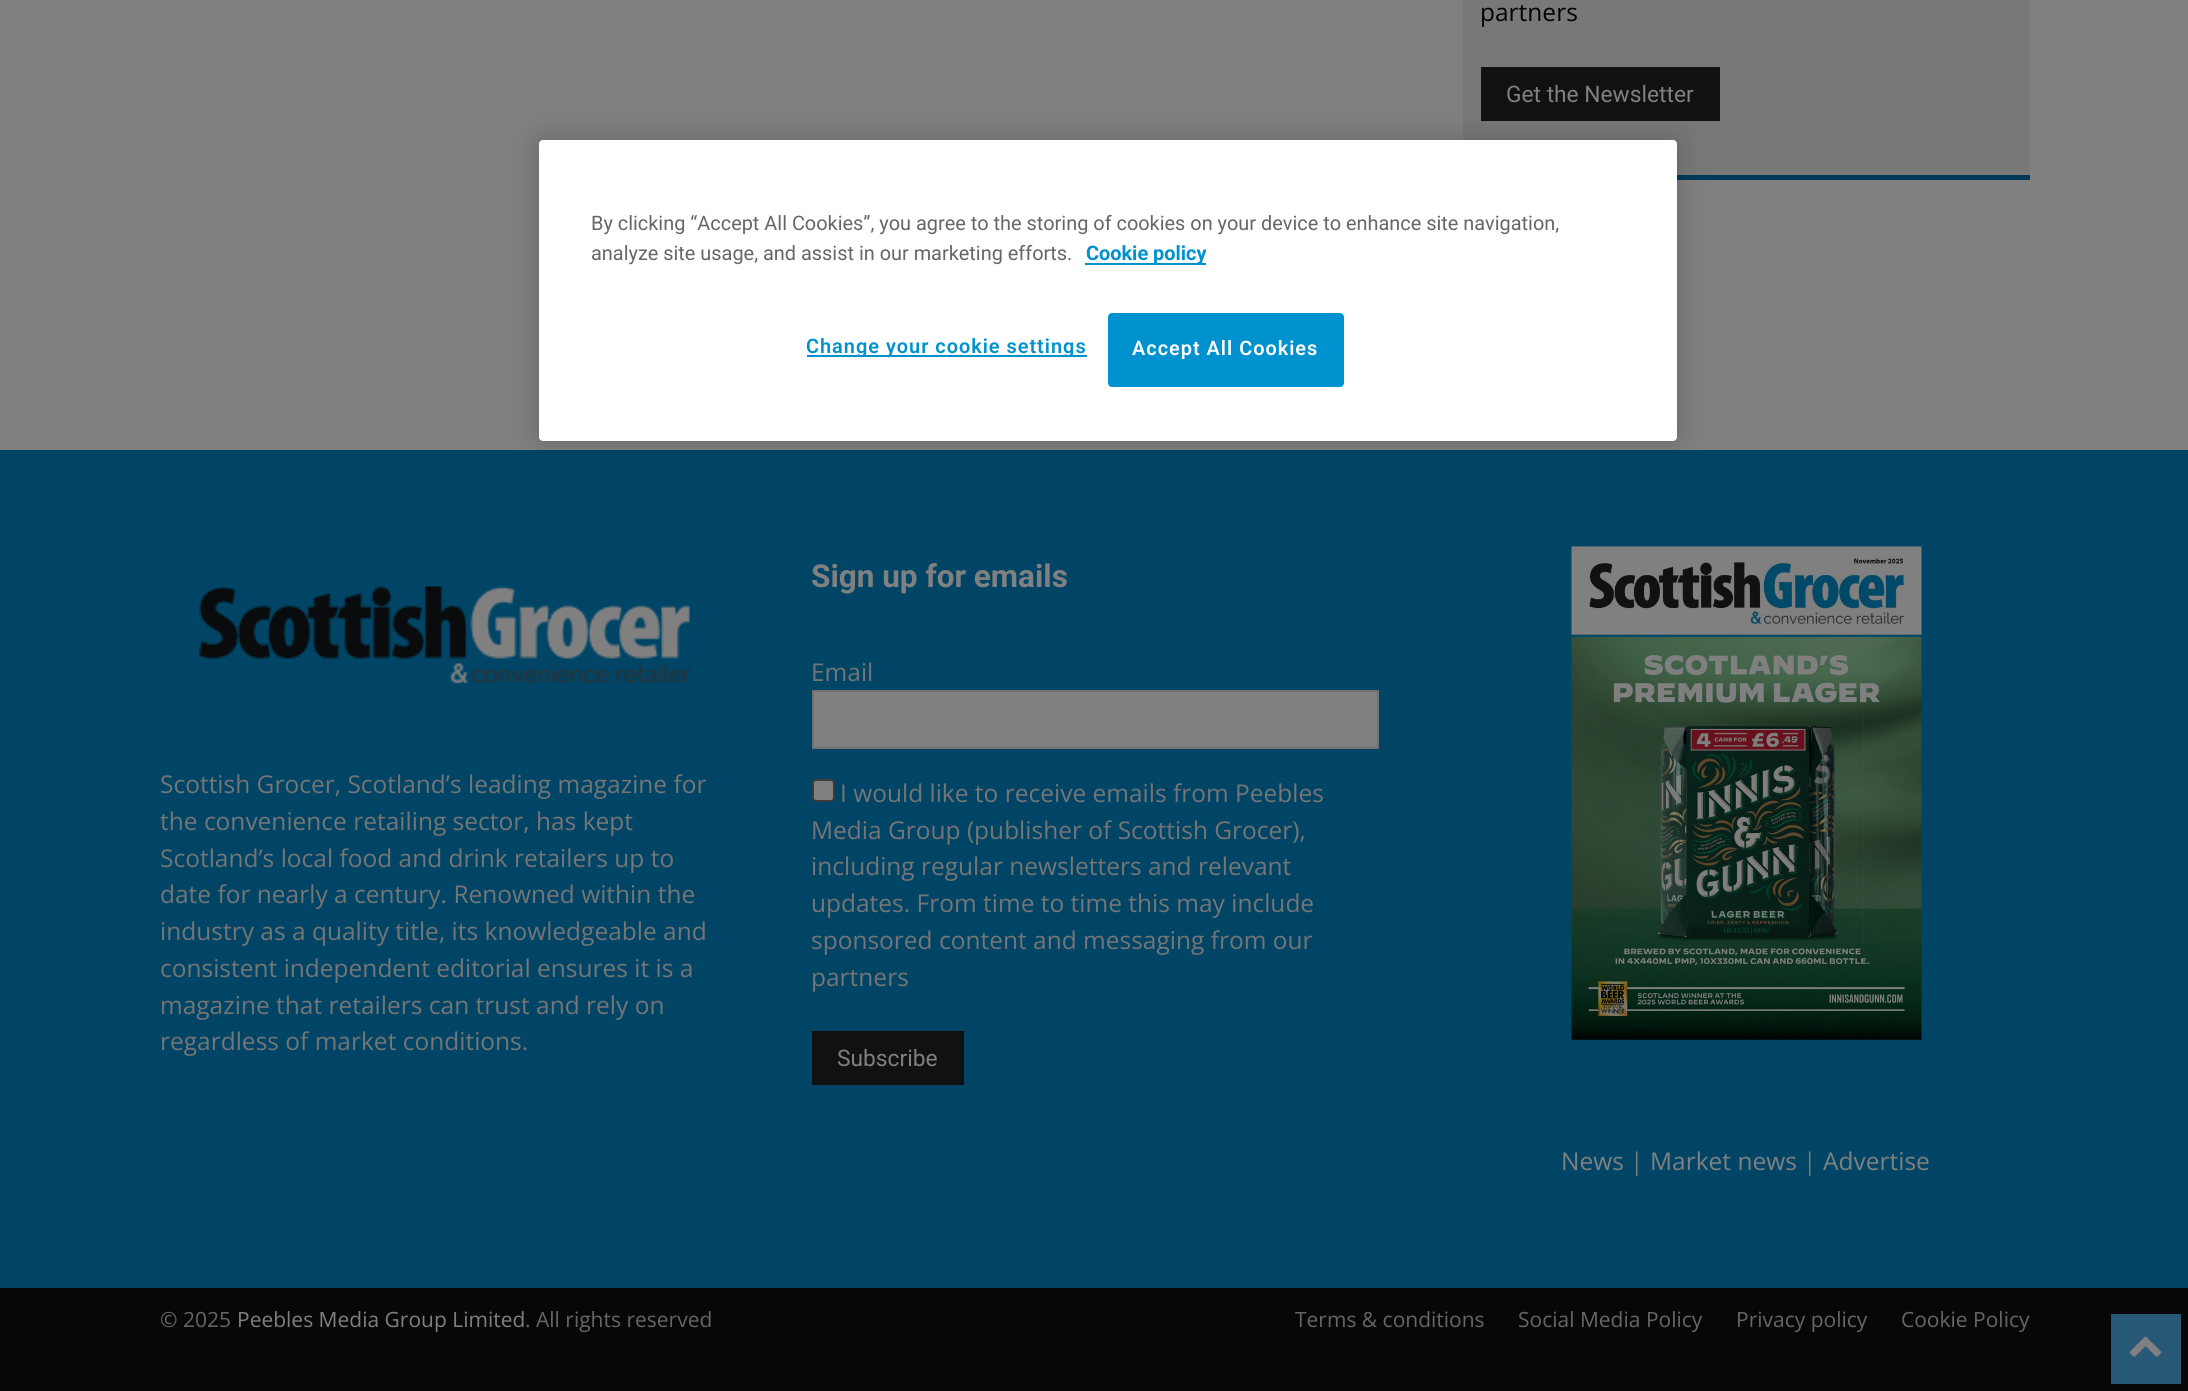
import math
import cairocffi as cairo

surface = cairo.ImageSurface(cairo.FORMAT_RGB24, 2188, 1391)
ctx = cairo.Context(surface)
options = cairo.FontOptions()
options.set_hint_metrics(cairo.HINT_METRICS_OFF)
options.set_hint_style(cairo.HINT_STYLE_NONE)
ctx.set_font_options(options)
ctx.set_miter_limit(4)


def rgb(r, g, b):
    ctx.set_source_rgb(r / 255, g / 255, b / 255)


def face(family, size, italic, bold):
    ctx.select_font_face(family, cairo.FONT_SLANT_ITALIC if italic else cairo.FONT_SLANT_NORMAL, cairo.FONT_WEIGHT_BOLD if bold else cairo.FONT_WEIGHT_NORMAL)
    ctx.set_font_size(size)


def label(x, y, s):
    ctx.move_to(x, y)
    ctx.show_text(s)


def tracked(x, y, s, letter, word):
    ctx.move_to(x, y)
    for ch in s:
        ctx.show_text(ch)
        ctx.rel_move_to(letter + word * (ch == ' '), 0)


def rect(x, y, w, h):
    ctx.rectangle(x, y, w, h)
    ctx.fill()


def rrect(x, y, w, h, r):
    ctx.new_sub_path()
    for i, (u, v) in enumerate([(x + w - r, y + h - r), (x + r, y + h - r), (x + r, y + r), (x + w - r, y + r)]):
        ctx.arc(u, v, r, i * math.pi / 2, (i + 1) * math.pi / 2)
    ctx.close_path()


def soft_shadow(x, y, w, h, r, blur, alpha):
    ctx.push_group_with_content(cairo.CONTENT_ALPHA)
    ctx.set_operator(cairo.OPERATOR_SOURCE)
    for i in range(15, -16, -2):
        e = blur * i / 6
        if min(w, h) + 2 * e > 0:
            ctx.set_source_rgba(0, 0, 0, alpha * math.erfc((i - 1) / 8.5) / 2)
            rrect(x - e, y - e, w + 2 * e, h + 2 * e, max(0, min(r + e + blur * .6, min(w, h) / 2 + e)))
            ctx.fill()
    ctx.mask(ctx.pop_group())


def image(path, x, y, w, h):
    ctx.save()
    ctx.set_source_surface(cairo.ImageSurface.create_from_png(path), x, y)
    ctx.rectangle(x, y, w, h)
    ctx.fill()
    ctx.restore()


rgb(128, 128, 128)
ctx.paint()
rgb(120, 120, 120)
rect(1463, 0, 567, 175)
rgb(0, 56, 88)
rect(1677, 175, 353, 5)
face('Open Sans', 24.5, 0, 0)
rgb(0, 0, 0)
label(1480, 21, 'partners')
rgb(17, 17, 17)
rect(1481, 67, 239, 54)
face('Roboto', 22.75, 0, 0)
rgb(128, 128, 128)
label(1506, 102, 'Get the Newsletter')
rgb(0, 69, 102)
rect(0, 450, 2188, 838)
image('image0.png', 199, 586, 491, 98)
face('Open Sans', 24.5, 0, 0)
rgb(117, 117, 117)
label(160, 793, 'Scottish Grocer, Scotland’s leading magazine for')
label(160, 830, 'the convenience retailing sector, has kept')
label(160, 867, 'Scotland’s local food and drink retailers up to')
label(160, 903, 'date for nearly a century. Renowned within the')
label(160, 940, 'industry as a quality title, its knowledgeable and')
label(160, 977, 'consistent independent editorial ensures it is a')
label(160, 1014, 'magazine that retailers can trust and rely on')
label(160, 1050, 'regardless of market conditions.')
face('Roboto', 31.5, 0, 1)
rgb(128, 128, 128)
label(811, 587, 'Sign up for emails')
face('Open Sans', 24.5, 0, 0)
rgb(117, 117, 117)
label(811, 681, 'Email')
rgb(128, 128, 128)
ctx.rectangle(813, 691, 565, 57)
ctx.fill_preserve()
rgb(113, 113, 113)
ctx.stroke()
rgb(128, 128, 128)
rrect(813, 780, 21, 21, 3)
ctx.fill_preserve()
rgb(59, 59, 59)
ctx.stroke()
rgb(117, 117, 117)
label(840, 802, 'I would like to receive emails from Peebles')
label(811, 839, 'Media Group (publisher of Scottish Grocer),')
label(811, 875, 'including regular newsletters and relevant')
label(811, 912, 'updates. From time to time this may include')
label(811, 949, 'sponsored content and messaging from our')
label(811, 986, 'partners')
rgb(17, 17, 17)
rect(812, 1031, 152, 54)
face('Roboto', 22.75, 0, 0)
rgb(128, 128, 128)
label(837, 1066, 'Subscribe')
image('image1.png', 1571, 546, 351, 494)
face('Open Sans', 24.5, 0, 0)
label(1561, 1170, 'News')
rgb(117, 117, 117)
label(1630, 1170, '|')
rgb(128, 128, 128)
label(1650, 1170, 'Market news')
rgb(117, 117, 117)
label(1803, 1170, '|')
rgb(128, 128, 128)
label(1823, 1170, 'Advertise')
rgb(7, 7, 7)
rect(0, 1288, 2188, 103)
face('Open Sans', 21, 0, 0)
rgb(102, 102, 102)
label(160, 1327, '© 2025')
rgb(128, 128, 128)
label(237, 1327, 'Peebles Media Group Limited')
rgb(102, 102, 102)
label(525, 1327, '. All rights reserved')
label(1295, 1327, 'Terms & conditions')
label(1518, 1327, 'Social Media Policy')
label(1736, 1327, 'Privacy policy')
label(1901, 1327, 'Cookie Policy')
rgb(0, 0, 0)
soft_shadow(539, 140, 1138, 301, 4, 16, 0.2)
rgb(255, 255, 255)
rrect(539, 140, 1138, 301, 4)
ctx.fill()
face('Roboto', 19.9, 0, 0)
rgb(102, 102, 102)
label(591, 230, 'By clicking “Accept All Cookies”, you agree to the storing of cookies on your device to enhance site navigation,')
label(591, 260, 'analyze site usage, and assist in our marketing efforts.')
rgb(0, 146, 207)
rect(1085, 263, 121, 2)
face('Roboto', 19.9, 0, 1)
label(1086, 260, 'Cookie policy')
rect(807, 355, 280, 2)
face('Roboto SemiBold', 19.9, 0, 0)
tracked(806, 353, 'Change your cookie settings', 1, 0)
rrect(1109, 314, 234, 72, 3)
ctx.fill_preserve()
ctx.stroke()
rgb(255, 255, 255)
tracked(1132, 355, 'Accept All Cookies', 1, 0)
rgb(39, 89, 118)
rect(2111, 1314, 70, 70)
image('image2.png', 2129, 1336, 33, 21)
surface.write_to_png('render.png')
